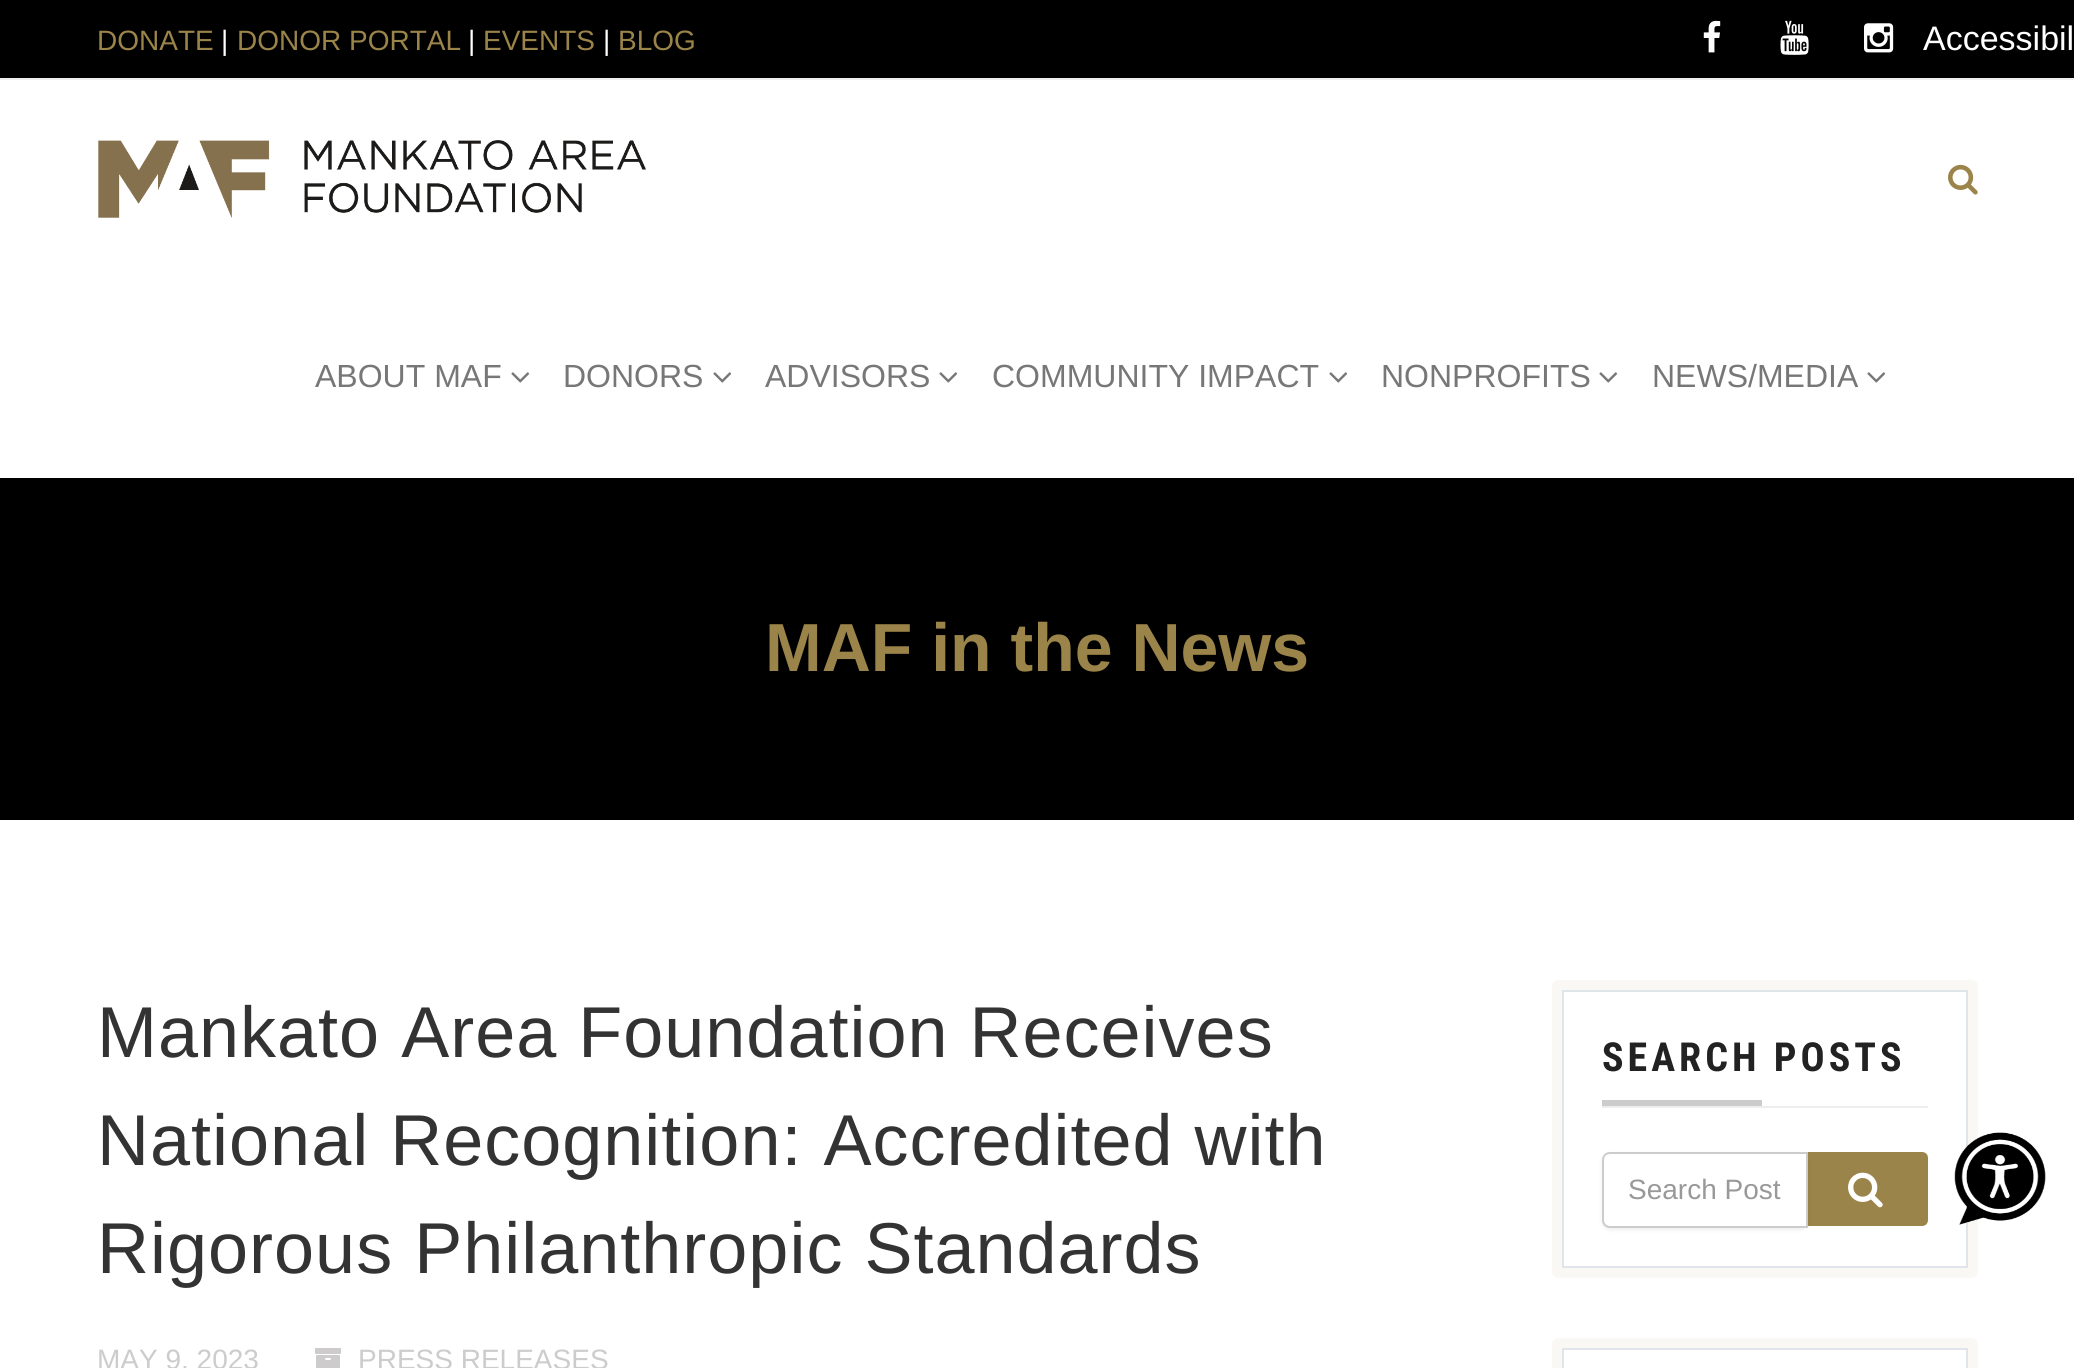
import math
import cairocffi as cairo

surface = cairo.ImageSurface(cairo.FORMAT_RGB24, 2074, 1368)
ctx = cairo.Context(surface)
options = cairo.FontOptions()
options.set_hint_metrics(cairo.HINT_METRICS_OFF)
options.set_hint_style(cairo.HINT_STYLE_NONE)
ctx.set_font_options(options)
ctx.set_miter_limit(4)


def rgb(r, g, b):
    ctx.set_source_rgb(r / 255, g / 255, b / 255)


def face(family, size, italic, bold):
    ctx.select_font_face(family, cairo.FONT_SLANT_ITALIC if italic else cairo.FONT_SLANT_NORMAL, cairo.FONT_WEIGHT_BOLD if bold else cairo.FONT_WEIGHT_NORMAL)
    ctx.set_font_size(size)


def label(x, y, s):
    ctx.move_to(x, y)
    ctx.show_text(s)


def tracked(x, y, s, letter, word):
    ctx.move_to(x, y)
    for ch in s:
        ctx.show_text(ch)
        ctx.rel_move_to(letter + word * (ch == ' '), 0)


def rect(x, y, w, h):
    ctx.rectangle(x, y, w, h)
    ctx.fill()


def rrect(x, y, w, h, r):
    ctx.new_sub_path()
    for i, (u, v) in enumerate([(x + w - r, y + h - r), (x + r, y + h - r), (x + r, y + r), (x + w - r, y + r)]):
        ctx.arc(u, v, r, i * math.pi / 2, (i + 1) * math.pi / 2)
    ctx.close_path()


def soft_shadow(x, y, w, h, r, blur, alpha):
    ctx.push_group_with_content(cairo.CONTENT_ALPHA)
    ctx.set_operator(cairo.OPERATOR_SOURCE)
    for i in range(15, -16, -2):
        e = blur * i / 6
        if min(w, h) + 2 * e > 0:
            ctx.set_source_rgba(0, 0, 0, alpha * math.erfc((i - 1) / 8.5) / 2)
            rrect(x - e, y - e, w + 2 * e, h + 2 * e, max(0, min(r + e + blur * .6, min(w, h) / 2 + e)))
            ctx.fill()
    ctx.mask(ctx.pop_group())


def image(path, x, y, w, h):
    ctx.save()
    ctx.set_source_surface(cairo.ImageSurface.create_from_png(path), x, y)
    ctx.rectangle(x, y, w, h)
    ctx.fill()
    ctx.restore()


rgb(255, 255, 255)
ctx.paint()
rgb(0, 0, 0)
rect(0, 0, 2074, 78)
rgb(238, 238, 238)
rect(0, 78, 2074, 2)
face('Liberation Sans', 28, 0, 0)
rgb(155, 132, 73)
label(97, 50, 'DONATE')
rgb(255, 255, 255)
label(221, 50, '|')
rgb(155, 132, 73)
label(237, 50, 'DONOR PORTAL')
rgb(255, 255, 255)
label(468, 50, '|')
rgb(155, 132, 73)
label(483, 50, 'EVENTS')
rgb(255, 255, 255)
label(603, 50, '|')
rgb(155, 132, 73)
label(618, 50, 'BLOG')
image('image0.png', 1703, 20, 18, 33)
image('image1.png', 1780, 20, 29, 35)
image('image2.png', 1864, 23, 30, 30)
face('Liberation Sans', 34, 0, 0)
rgb(255, 255, 255)
label(1923, 50, 'Accessibil')
image('image3.png', 98, 140, 548, 78)
image('image4.png', 1948, 164, 30, 31)
face('Liberation Sans', 32, 0, 0)
rgb(119, 119, 119)
label(315, 387, 'ABOUT MAF')
image('image5.png', 511, 372, 19, 11)
label(563, 387, 'DONORS')
image('image5.png', 713, 372, 19, 11)
label(765, 387, 'ADVISORS')
image('image5.png', 939, 372, 19, 11)
label(992, 387, 'COMMUNITY IMPACT')
image('image5.png', 1329, 372, 19, 11)
label(1381, 387, 'NONPROFITS')
image('image5.png', 1599, 372, 19, 11)
label(1652, 387, 'NEWS/MEDIA')
image('image5.png', 1867, 372, 19, 11)
rgb(0, 0, 0)
rect(0, 478, 2074, 342)
face('Liberation Sans', 68, 0, 1)
rgb(155, 132, 73)
label(765, 671, 'MAF in the News')
face('Liberation Sans', 72, 0, 0)
rgb(51, 51, 51)
tracked(97, 1057, 'Mankato Area Foundation Receives', 1, 0)
tracked(97, 1165, 'National Recognition: Accredited with', 1, 0)
tracked(97, 1273, 'Rigorous Philanthropic Standards', 1, 0)
face('Liberation Sans', 28, 0, 0)
rgb(205, 203, 203)
label(97, 1369, 'MAY 9, 2023')
image('image6.png', 315, 1348, 26, 20)
label(358, 1369, 'PRESS RELEASES')
ctx.rectangle(1563, 991, 404, 276)
rgb(224, 229, 233)
ctx.stroke()
rrect(1557, 985, 416, 288, 1)
rgb(249, 248, 245)
ctx.set_line_width(10)
ctx.stroke()
rgb(238, 238, 238)
rect(1602, 1106, 326, 2)
face('Roboto Condensed', 40, 0, 1)
rgb(34, 34, 34)
tracked(1602, 1071, 'SEARCH POSTS', 4, 0)
rgb(204, 204, 204)
rect(1602, 1100, 160, 6)
rgb(155, 132, 73)
ctx.new_path()
ctx.move_to(1806, 1152)
ctx.line_to(1922, 1152)
ctx.curve_to(1925.5, 1152, 1928, 1154.5, 1928, 1158)
ctx.line_to(1928, 1220)
ctx.curve_to(1928, 1223.5, 1925.5, 1226, 1922, 1226)
ctx.line_to(1806, 1226)
ctx.close_path()
ctx.fill()
rgb(0, 0, 0)
soft_shadow(1602, 1154, 206, 76, 8, 2, 0.07)
rgb(255, 255, 255)
ctx.new_path()
ctx.move_to(1610, 1153)
ctx.line_to(1807, 1153)
ctx.line_to(1807, 1227)
ctx.line_to(1610, 1227)
ctx.curve_to(1606, 1227, 1603, 1224, 1603, 1220)
ctx.line_to(1603, 1160)
ctx.curve_to(1603, 1156, 1606, 1153, 1610, 1153)
ctx.close_path()
ctx.fill_preserve()
rgb(204, 204, 204)
ctx.set_line_width(2)
ctx.stroke()
face('Liberation Sans', 28, 0, 0)
rgb(153, 153, 153)
label(1628, 1199, 'Search Post')
image('image7.png', 1848, 1172, 35, 36)
ctx.rectangle(1563, 1349, 404, 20)
rgb(224, 229, 233)
ctx.stroke()
rrect(1557, 1343, 416, 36, 1)
rgb(249, 248, 245)
ctx.set_line_width(10)
ctx.stroke()
image('image8.png', 1954, 1132, 92, 93)
surface.write_to_png('render.png')
